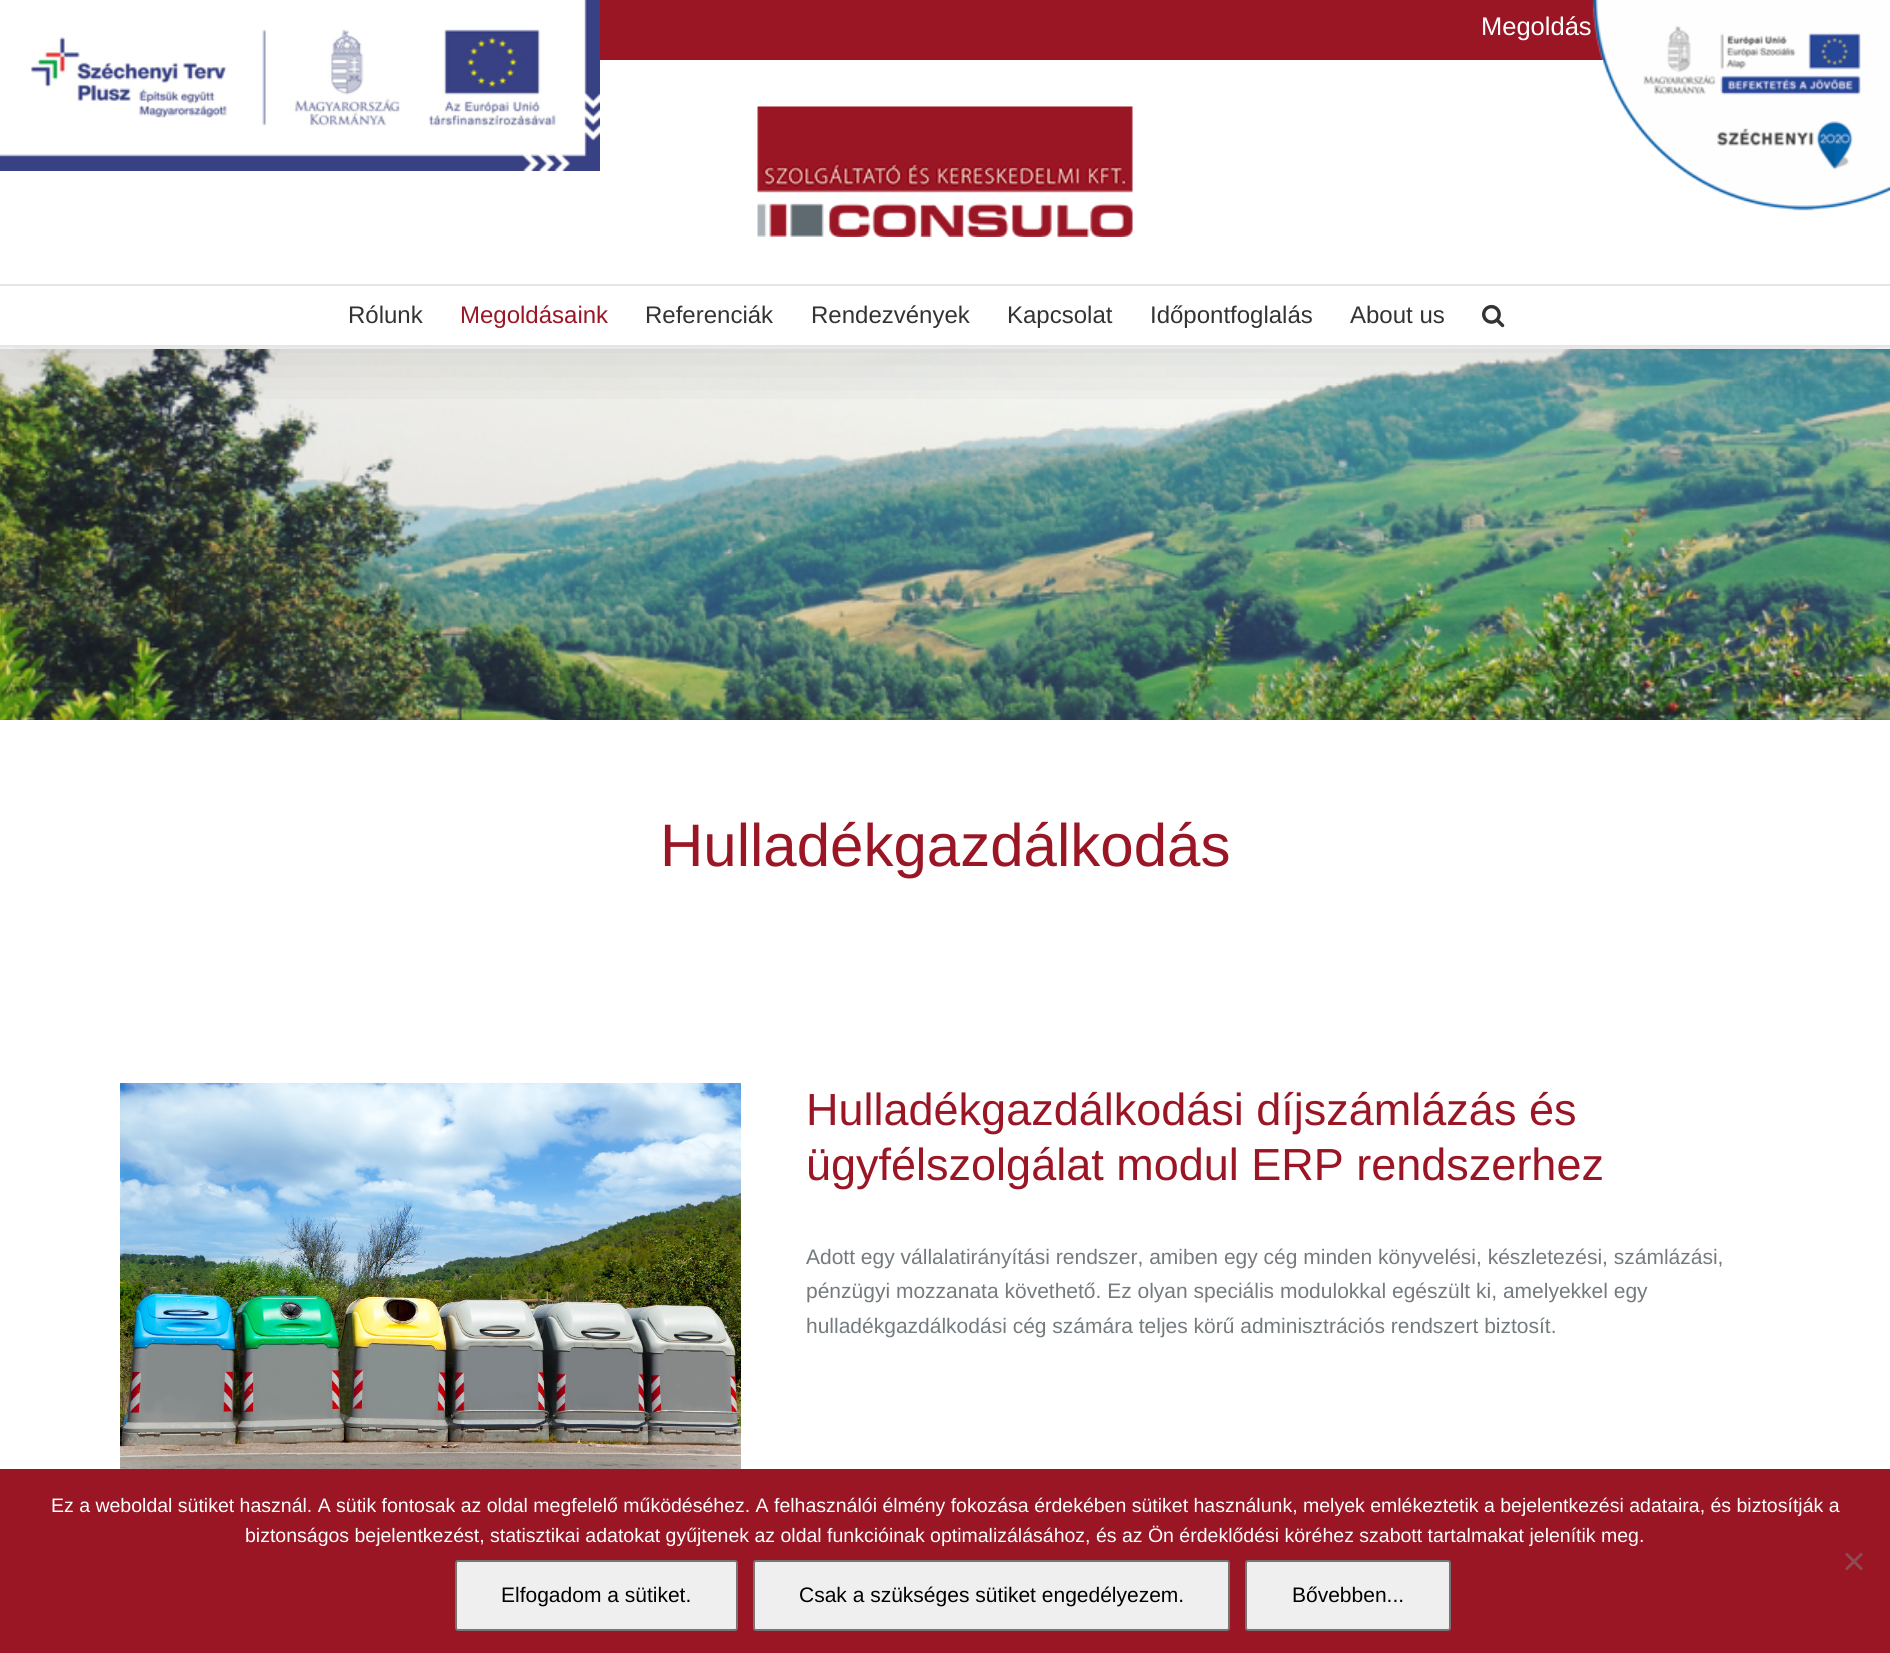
import math
import cairocffi as cairo

surface = cairo.ImageSurface(cairo.FORMAT_RGB24, 1890, 1653)
ctx = cairo.Context(surface)
options = cairo.FontOptions()
options.set_hint_metrics(cairo.HINT_METRICS_OFF)
options.set_hint_style(cairo.HINT_STYLE_NONE)
ctx.set_font_options(options)
ctx.set_miter_limit(4)


def rgb(r, g, b):
    ctx.set_source_rgb(r / 255, g / 255, b / 255)


def face(family, size, italic, bold):
    ctx.select_font_face(family, cairo.FONT_SLANT_ITALIC if italic else cairo.FONT_SLANT_NORMAL, cairo.FONT_WEIGHT_BOLD if bold else cairo.FONT_WEIGHT_NORMAL)
    ctx.set_font_size(size)


def label(x, y, s):
    ctx.move_to(x, y)
    ctx.show_text(s)


def rect(x, y, w, h):
    ctx.rectangle(x, y, w, h)
    ctx.fill()


def rrect(x, y, w, h, r):
    ctx.new_sub_path()
    for i, (u, v) in enumerate([(x + w - r, y + h - r), (x + r, y + h - r), (x + r, y + r), (x + w - r, y + r)]):
        ctx.arc(u, v, r, i * math.pi / 2, (i + 1) * math.pi / 2)
    ctx.close_path()


def soft_shadow(x, y, w, h, r, blur, alpha):
    ctx.push_group_with_content(cairo.CONTENT_ALPHA)
    ctx.set_operator(cairo.OPERATOR_SOURCE)
    for i in range(15, -16, -2):
        e = blur * i / 6
        if min(w, h) + 2 * e > 0:
            ctx.set_source_rgba(0, 0, 0, alpha * math.erfc((i - 1) / 8.5) / 2)
            rrect(x - e, y - e, w + 2 * e, h + 2 * e, max(0, min(r + e + blur * .6, min(w, h) / 2 + e)))
            ctx.fill()
    ctx.mask(ctx.pop_group())


def image(path, x, y, w, h):
    ctx.save()
    ctx.set_source_surface(cairo.ImageSurface.create_from_png(path), x, y)
    ctx.rectangle(x, y, w, h)
    ctx.fill()
    ctx.restore()


rgb(255, 255, 255)
ctx.paint()
image('image2.png', 0, 349, 1890, 371)
ctx.save()
ctx.rectangle(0, 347, 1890, 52)
ctx.clip()
rgb(0, 0, 0)
soft_shadow(3, 18, 1884, 341, 0, 37.5, 0.14)
ctx.restore()
rgb(155, 22, 37)
rect(600, 0, 1004, 60)
face('Liberation Sans', 25.5, 0, 0)
rgb(255, 255, 255)
label(1481, 35, 'Megoldás')
rgb(229, 229, 229)
rect(0, 284, 1890, 2)
image('image0.png', 757, 106, 376, 131)
rect(0, 345, 1890, 2)
face('Liberation Sans', 24, 0, 0)
rgb(51, 51, 51)
label(348, 323, 'Rólunk')
rgb(155, 22, 37)
label(460, 323, 'Megoldásaink')
rgb(51, 51, 51)
label(645, 323, 'Referenciák')
label(811, 323, 'Rendezvények')
label(1007, 323, 'Kapcsolat')
label(1150, 323, 'Időpontfoglalás')
label(1350, 323, 'About us')
image('image1.png', 1482, 304, 23, 24)
face('Liberation Sans', 60, 0, 0)
rgb(155, 22, 37)
label(660, 866, 'Hulladékgazdálkodás')
image('image3.png', 120, 1083, 621, 386)
face('Liberation Sans', 45, 0, 0)
label(806, 1125, 'Hulladékgazdálkodási díjszámlázás és')
label(806, 1180, 'ügyfélszolgálat modul ERP rendszerhez')
face('Liberation Sans', 21, 0, 0)
rgb(116, 122, 125)
label(806, 1264, 'Adott egy vállalatirányítási rendszer, amiben egy cég minden könyvelési, készletezési, számlázási,')
label(806, 1298, 'pénzügyi mozzanata követhető. Ez olyan speciális modulokkal egészült ki, amelyekkel egy')
label(806, 1333, 'hulladékgazdálkodási cég számára teljes körű adminisztrációs rendszert biztosít.')
image('image4.png', 0, 0, 600, 171)
image('image5.png', 1592, 0, 298, 211)
rgb(155, 22, 37)
rect(0, 1469, 1890, 184)
face('Liberation Sans', 19.5, 0, 0)
rgb(255, 255, 255)
label(51, 1512, 'Ez a weboldal sütiket használ. A sütik fontosak az oldal megfelelő működéséhez. A felhasználói élmény fokozása érdekében sütiket használunk, melyek emlékeztetik a bejelentkezési adataira, és biztosítják a')
label(245, 1542, 'biztonságos bejelentkezést, statisztikai adatokat gyűjtenek az oldal funkcióinak optimalizálásához, és az Ön érdeklődési köréhez szabott tartalmakat jelenítik meg.')
rgb(142, 75, 83)
ctx.new_path()
ctx.move_to(1861, 1552.5)
ctx.line_to(1863, 1554.5)
ctx.line_to(1847, 1570.5)
ctx.line_to(1845, 1568.5)
ctx.close_path()
ctx.fill()
ctx.new_path()
ctx.move_to(1845, 1554.5)
ctx.line_to(1847, 1552.5)
ctx.line_to(1863, 1568.5)
ctx.line_to(1861, 1570.5)
ctx.close_path()
ctx.fill()
rgb(239, 239, 239)
rrect(456, 1561, 281, 69, 2)
ctx.fill_preserve()
rgb(118, 118, 118)
ctx.stroke()
face('Liberation Sans', 21, 0, 0)
rgb(0, 0, 0)
label(501, 1602, 'Elfogadom a sütiket.')
rgb(239, 239, 239)
rrect(754, 1561, 475, 69, 2)
ctx.fill_preserve()
rgb(118, 118, 118)
ctx.stroke()
rgb(0, 0, 0)
label(799, 1602, 'Csak a szükséges sütiket engedélyezem.')
rgb(239, 239, 239)
rrect(1246, 1561, 204, 69, 2)
ctx.fill_preserve()
rgb(118, 118, 118)
ctx.stroke()
rgb(0, 0, 0)
label(1292, 1602, 'Bővebben...')
surface.write_to_png('render.png')
